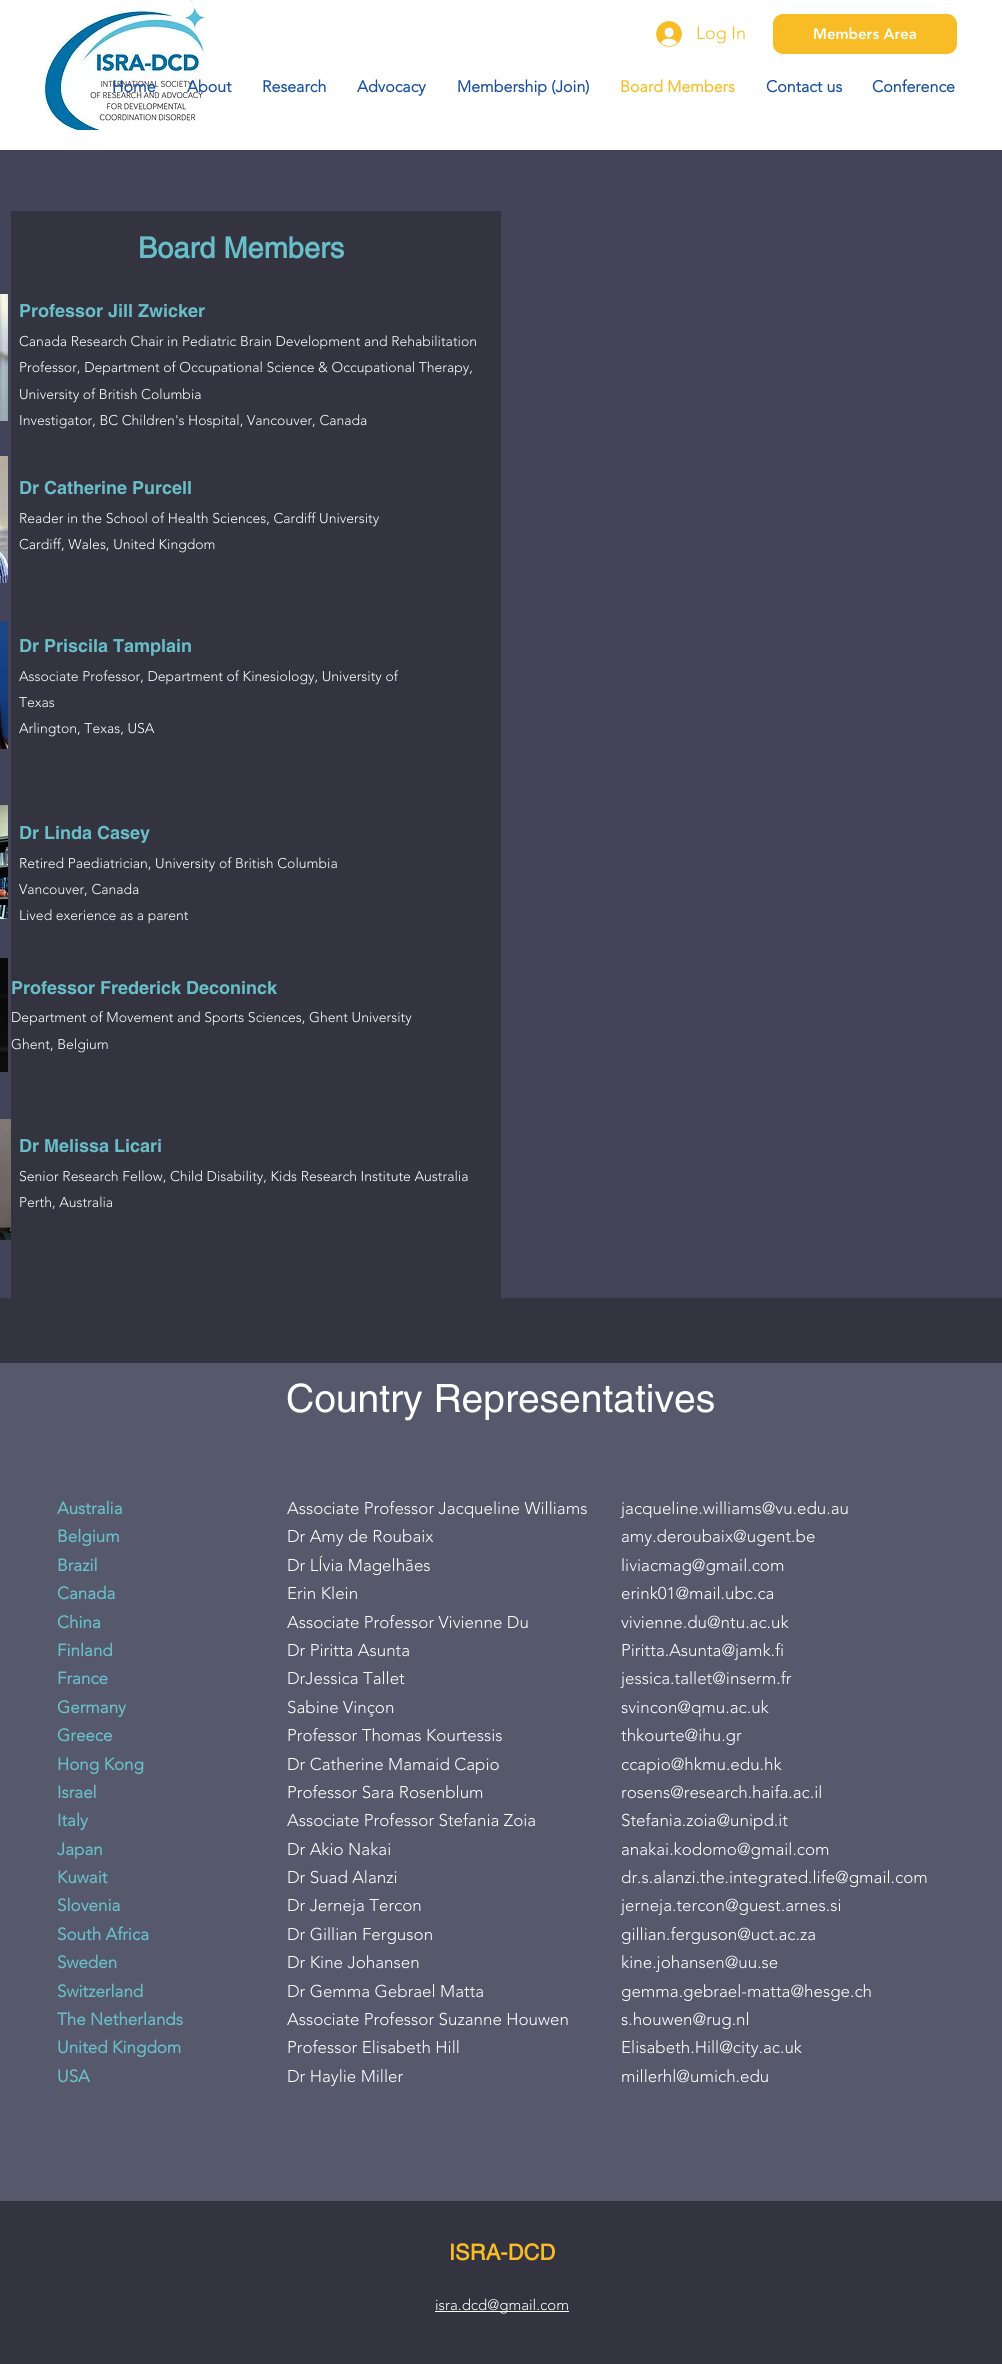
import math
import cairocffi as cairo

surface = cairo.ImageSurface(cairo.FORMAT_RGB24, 1002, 2364)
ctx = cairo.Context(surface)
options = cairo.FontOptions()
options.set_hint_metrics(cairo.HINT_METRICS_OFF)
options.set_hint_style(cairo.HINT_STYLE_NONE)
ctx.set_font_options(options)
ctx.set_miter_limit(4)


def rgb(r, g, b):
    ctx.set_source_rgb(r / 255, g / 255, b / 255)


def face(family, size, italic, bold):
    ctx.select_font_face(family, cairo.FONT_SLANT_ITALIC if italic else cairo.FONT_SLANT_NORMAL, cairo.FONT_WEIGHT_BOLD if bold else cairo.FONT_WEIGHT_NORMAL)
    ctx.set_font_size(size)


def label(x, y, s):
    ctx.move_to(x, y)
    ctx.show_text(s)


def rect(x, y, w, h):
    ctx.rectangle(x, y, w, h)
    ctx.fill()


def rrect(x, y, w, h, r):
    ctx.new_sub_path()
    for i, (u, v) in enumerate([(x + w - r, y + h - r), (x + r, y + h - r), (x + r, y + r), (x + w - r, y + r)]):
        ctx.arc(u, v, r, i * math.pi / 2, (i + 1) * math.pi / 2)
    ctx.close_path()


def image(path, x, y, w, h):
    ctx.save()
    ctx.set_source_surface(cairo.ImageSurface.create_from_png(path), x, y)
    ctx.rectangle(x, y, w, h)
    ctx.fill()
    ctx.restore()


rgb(51, 52, 63)
ctx.paint()
rgb(255, 255, 255)
rect(0, 0, 1002, 150)
image('image0.png', 45, 0, 161, 130)
image('image1.png', 656, 21, 26, 26)
face('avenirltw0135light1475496 Light', 18, 0, 0)
rgb(248, 189, 38)
label(696, 39, 'Log In')
rrect(773, 14, 184, 40, 10)
ctx.fill()
face('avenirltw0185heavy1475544 Black', 15, 0, 0)
rgb(255, 255, 255)
label(813, 39, 'Members Area')
face('avenirltw0135light1475496', 16, 0, 1)
rgb(24, 80, 158)
label(112, 92, 'Home')
label(187, 92, 'About')
label(262, 92, 'Research')
label(357, 92, 'Advocacy')
label(457, 92, 'Membership (Join)')
rgb(248, 189, 38)
label(620, 92, 'Board Members')
rgb(24, 80, 158)
label(766, 92, 'Contact us')
label(872, 92, 'Conference')
rgb(67, 68, 89)
rect(0, 150, 1002, 1148)
rgb(51, 52, 63)
rect(11, 211, 490, 1087)
face('helvetica', 29, 0, 1)
rgb(105, 191, 201)
label(138, 258, 'Board Members')
image('image2.png', 0, 294, 8, 127)
face('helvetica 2', 18, 0, 1)
label(19, 317, 'Professor Jill Zwicker')
face('avenirltw0135light1475496 Light', 14, 0, 0)
rgb(255, 255, 255)
label(19, 346, 'Canada Research Chair in Pediatric Brain Development and Rehabilitation')
label(19, 372, 'Professor, Department of Occupational Science & Occupational Therapy,')
label(19, 399, 'University of British Columbia')
label(19, 425, 'Investigator, BC Children\'s Hospital, Vancouver, Canada')
image('image3.png', 0, 456, 8, 127)
face('helvetica 2', 18, 0, 1)
rgb(105, 191, 201)
label(19, 494, 'Dr Catherine Purcell')
face('avenirltw0135light1475496 Light', 14, 0, 0)
rgb(255, 255, 255)
label(19, 523, 'Reader in the School of Health Sciences, Cardiff University')
label(19, 549, 'Cardiff, Wales, United Kingdom')
image('image4.png', 0, 622, 8, 127)
face('helvetica 2', 18, 0, 1)
rgb(105, 191, 201)
label(19, 652, 'Dr Priscila Tamplain')
face('avenirltw0135light1475496 Light', 14, 0, 0)
rgb(255, 255, 255)
label(19, 681, 'Associate Professor, Department of Kinesiology, University of')
label(19, 707, 'Texas')
label(19, 733, 'Arlington, Texas, USA')
image('image5.png', 0, 805, 8, 114)
face('helvetica 2', 18, 0, 1)
rgb(105, 191, 201)
label(19, 839, 'Dr Linda Casey')
face('avenirltw0135light1475496 Light', 14, 0, 0)
rgb(255, 255, 255)
label(19, 868, 'Retired Paediatrician, University of British Columbia')
label(19, 894, 'Vancouver, Canada')
label(19, 920, 'Lived exerience as a parent')
image('image6.png', 0, 958, 8, 114)
face('helvetica 2', 18, 0, 1)
rgb(105, 191, 201)
label(11, 994, 'Professor Frederick Deconinck')
face('avenirltw0135light1475496 Light', 14, 0, 0)
rgb(255, 255, 255)
label(11, 1022, 'Department of Movement and Sports Sciences, Ghent University')
label(11, 1049, 'Ghent, Belgium')
image('image7.png', 0, 1119, 11, 121)
face('helvetica 2', 18, 0, 1)
rgb(105, 191, 201)
label(19, 1152, 'Dr Melissa Licari')
face('avenirltw0135light1475496 Light', 14, 0, 0)
rgb(255, 255, 255)
label(19, 1181, 'Senior Research Fellow, Child Disability, Kids Research Institute Australia')
label(19, 1207, 'Perth, Australia')
rgb(86, 88, 107)
rect(0, 1363, 1002, 838)
face('helvetica', 39, 0, 0)
rgb(255, 255, 255)
label(286, 1412, 'Country Representatives')
face('avenirltw0135light1475496', 17, 0, 1)
rgb(105, 191, 201)
label(57, 1514, 'Australia')
label(57, 1542, 'Belgium')
label(57, 1571, 'Brazil')
label(57, 1599, 'Canada')
label(57, 1628, 'China')
label(57, 1656, 'Finland')
label(57, 1684, 'France')
label(57, 1713, 'Germany')
label(57, 1741, 'Greece')
label(57, 1770, 'Hong Kong')
label(57, 1798, 'Israel')
label(57, 1826, 'Italy')
label(57, 1855, 'Japan')
label(57, 1883, 'Kuwait')
label(57, 1911, 'Slovenia')
label(57, 1940, 'South Africa')
label(57, 1968, 'Sweden')
label(57, 1997, 'Switzerland')
label(57, 2025, 'The Netherlands')
label(57, 2053, 'United Kingdom')
label(57, 2082, 'USA')
face('avenirltw0135light1475496 Light', 17, 0, 0)
rgb(255, 255, 255)
label(287, 1514, 'Associate Professor Jacqueline Williams')
label(287, 1542, 'Dr Amy de Roubaix')
label(287, 1571, 'Dr LÍvia Magelhães')
label(287, 1599, 'Erin Klein')
label(287, 1628, 'Associate Professor Vivienne Du')
label(287, 1656, 'Dr Piritta Asunta')
label(287, 1684, 'DrJessica Tallet')
label(287, 1713, 'Sabine Vinçon')
label(287, 1741, 'Professor Thomas Kourtessis')
label(287, 1770, 'Dr Catherine Mamaid Capio')
label(287, 1798, 'Professor Sara Rosenblum')
label(287, 1826, 'Associate Professor Stefania Zoia')
label(287, 1855, 'Dr Akio Nakai')
label(287, 1883, 'Dr Suad Alanzi')
label(287, 1911, 'Dr Jerneja Tercon')
label(287, 1940, 'Dr Gillian Ferguson')
label(287, 1968, 'Dr Kine Johansen')
label(287, 1997, 'Dr Gemma Gebrael Matta')
label(287, 2025, 'Associate Professor Suzanne Houwen')
label(287, 2053, 'Professor Elisabeth Hill')
label(287, 2082, 'Dr Haylie Miller')
label(621, 1514, 'jacqueline.williams@vu.edu.au')
label(621, 1542, 'amy.deroubaix@ugent.be')
label(621, 1571, 'liviacmag@gmail.com')
label(621, 1599, 'erink01@mail.ubc.ca')
label(621, 1628, 'vivienne.du@ntu.ac.uk')
label(621, 1656, 'Piritta.Asunta@jamk.fi')
label(621, 1684, 'jessica.tallet@inserm.fr')
label(621, 1713, 'svincon@qmu.ac.uk')
label(621, 1741, 'thkourte@ihu.gr')
label(621, 1770, 'ccapio@hkmu.edu.hk')
label(621, 1798, 'rosens@research.haifa.ac.il')
label(621, 1826, 'Stefania.zoia@unipd.it')
label(621, 1855, 'anakai.kodomo@gmail.com')
label(621, 1883, 'dr.s.alanzi.the.integrated.life@gmail.com')
label(621, 1911, 'jerneja.tercon@guest.arnes.si')
label(621, 1940, 'gillian.ferguson@uct.ac.za')
label(621, 1968, 'kine.johansen@uu.se')
label(621, 1997, 'gemma.gebrael-matta@hesge.ch')
label(621, 2025, 's.houwen@rug.nl')
label(621, 2053, 'Elisabeth.Hill@city.ac.uk')
label(621, 2082, 'millerhl@umich.edu')
face('helvetica', 22, 0, 1)
rgb(248, 189, 38)
label(449, 2260, 'ISRA-DCD')
rgb(255, 255, 255)
rect(435, 2311, 134, 1)
face('avenirltw0135light1475496 Light', 15, 0, 0)
label(435, 2310, 'isra.dcd@gmail.com')
surface.write_to_png('render.png')
